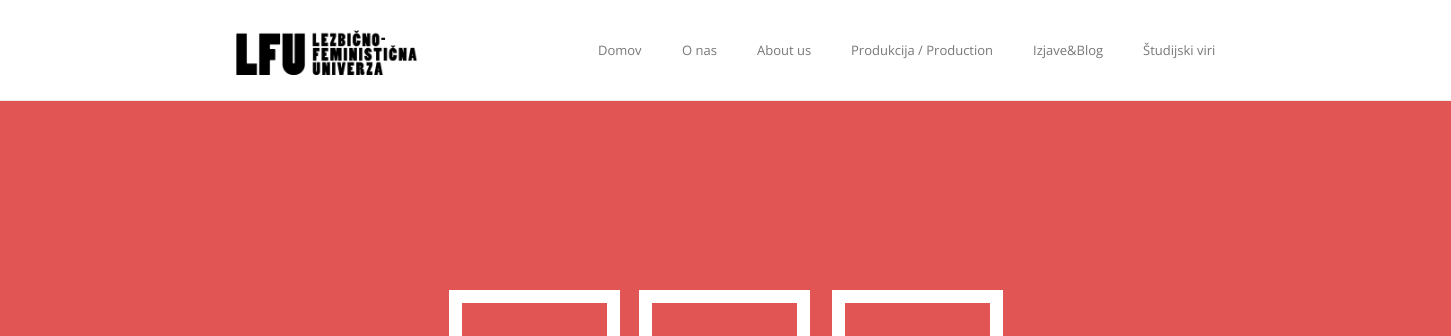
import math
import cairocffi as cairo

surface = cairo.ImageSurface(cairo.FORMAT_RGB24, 1451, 336)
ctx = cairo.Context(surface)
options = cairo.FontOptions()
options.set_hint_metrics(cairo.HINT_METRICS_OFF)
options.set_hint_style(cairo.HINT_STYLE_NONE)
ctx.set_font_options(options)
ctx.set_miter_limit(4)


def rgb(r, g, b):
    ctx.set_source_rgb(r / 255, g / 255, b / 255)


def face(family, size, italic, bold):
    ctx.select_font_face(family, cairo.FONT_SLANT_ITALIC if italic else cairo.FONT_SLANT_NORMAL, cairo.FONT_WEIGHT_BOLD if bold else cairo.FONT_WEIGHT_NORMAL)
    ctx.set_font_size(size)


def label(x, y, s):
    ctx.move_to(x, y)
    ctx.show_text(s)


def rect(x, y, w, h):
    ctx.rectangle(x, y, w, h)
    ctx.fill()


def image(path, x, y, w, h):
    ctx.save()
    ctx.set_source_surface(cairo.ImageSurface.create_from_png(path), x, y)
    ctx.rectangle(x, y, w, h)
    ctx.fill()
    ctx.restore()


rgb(255, 255, 255)
ctx.paint()
rgb(235, 235, 235)
rect(0, 100, 1451, 1)
image('image0.png', 236, 30, 182, 45)
face('Open Sans', 13, 0, 0)
rgb(119, 119, 119)
label(598, 55, 'Domov')
label(682, 55, 'O nas')
label(757, 55, 'About us')
label(851, 55, 'Produkcija / Production')
label(1033, 55, 'Izjave&Blog')
label(1143, 55, 'Študijski viri')
rgb(225, 85, 85)
rect(0, 101, 1451, 235)
image('image1.png', 449, 290, 554, 46)
surface.write_to_png('render.png')
